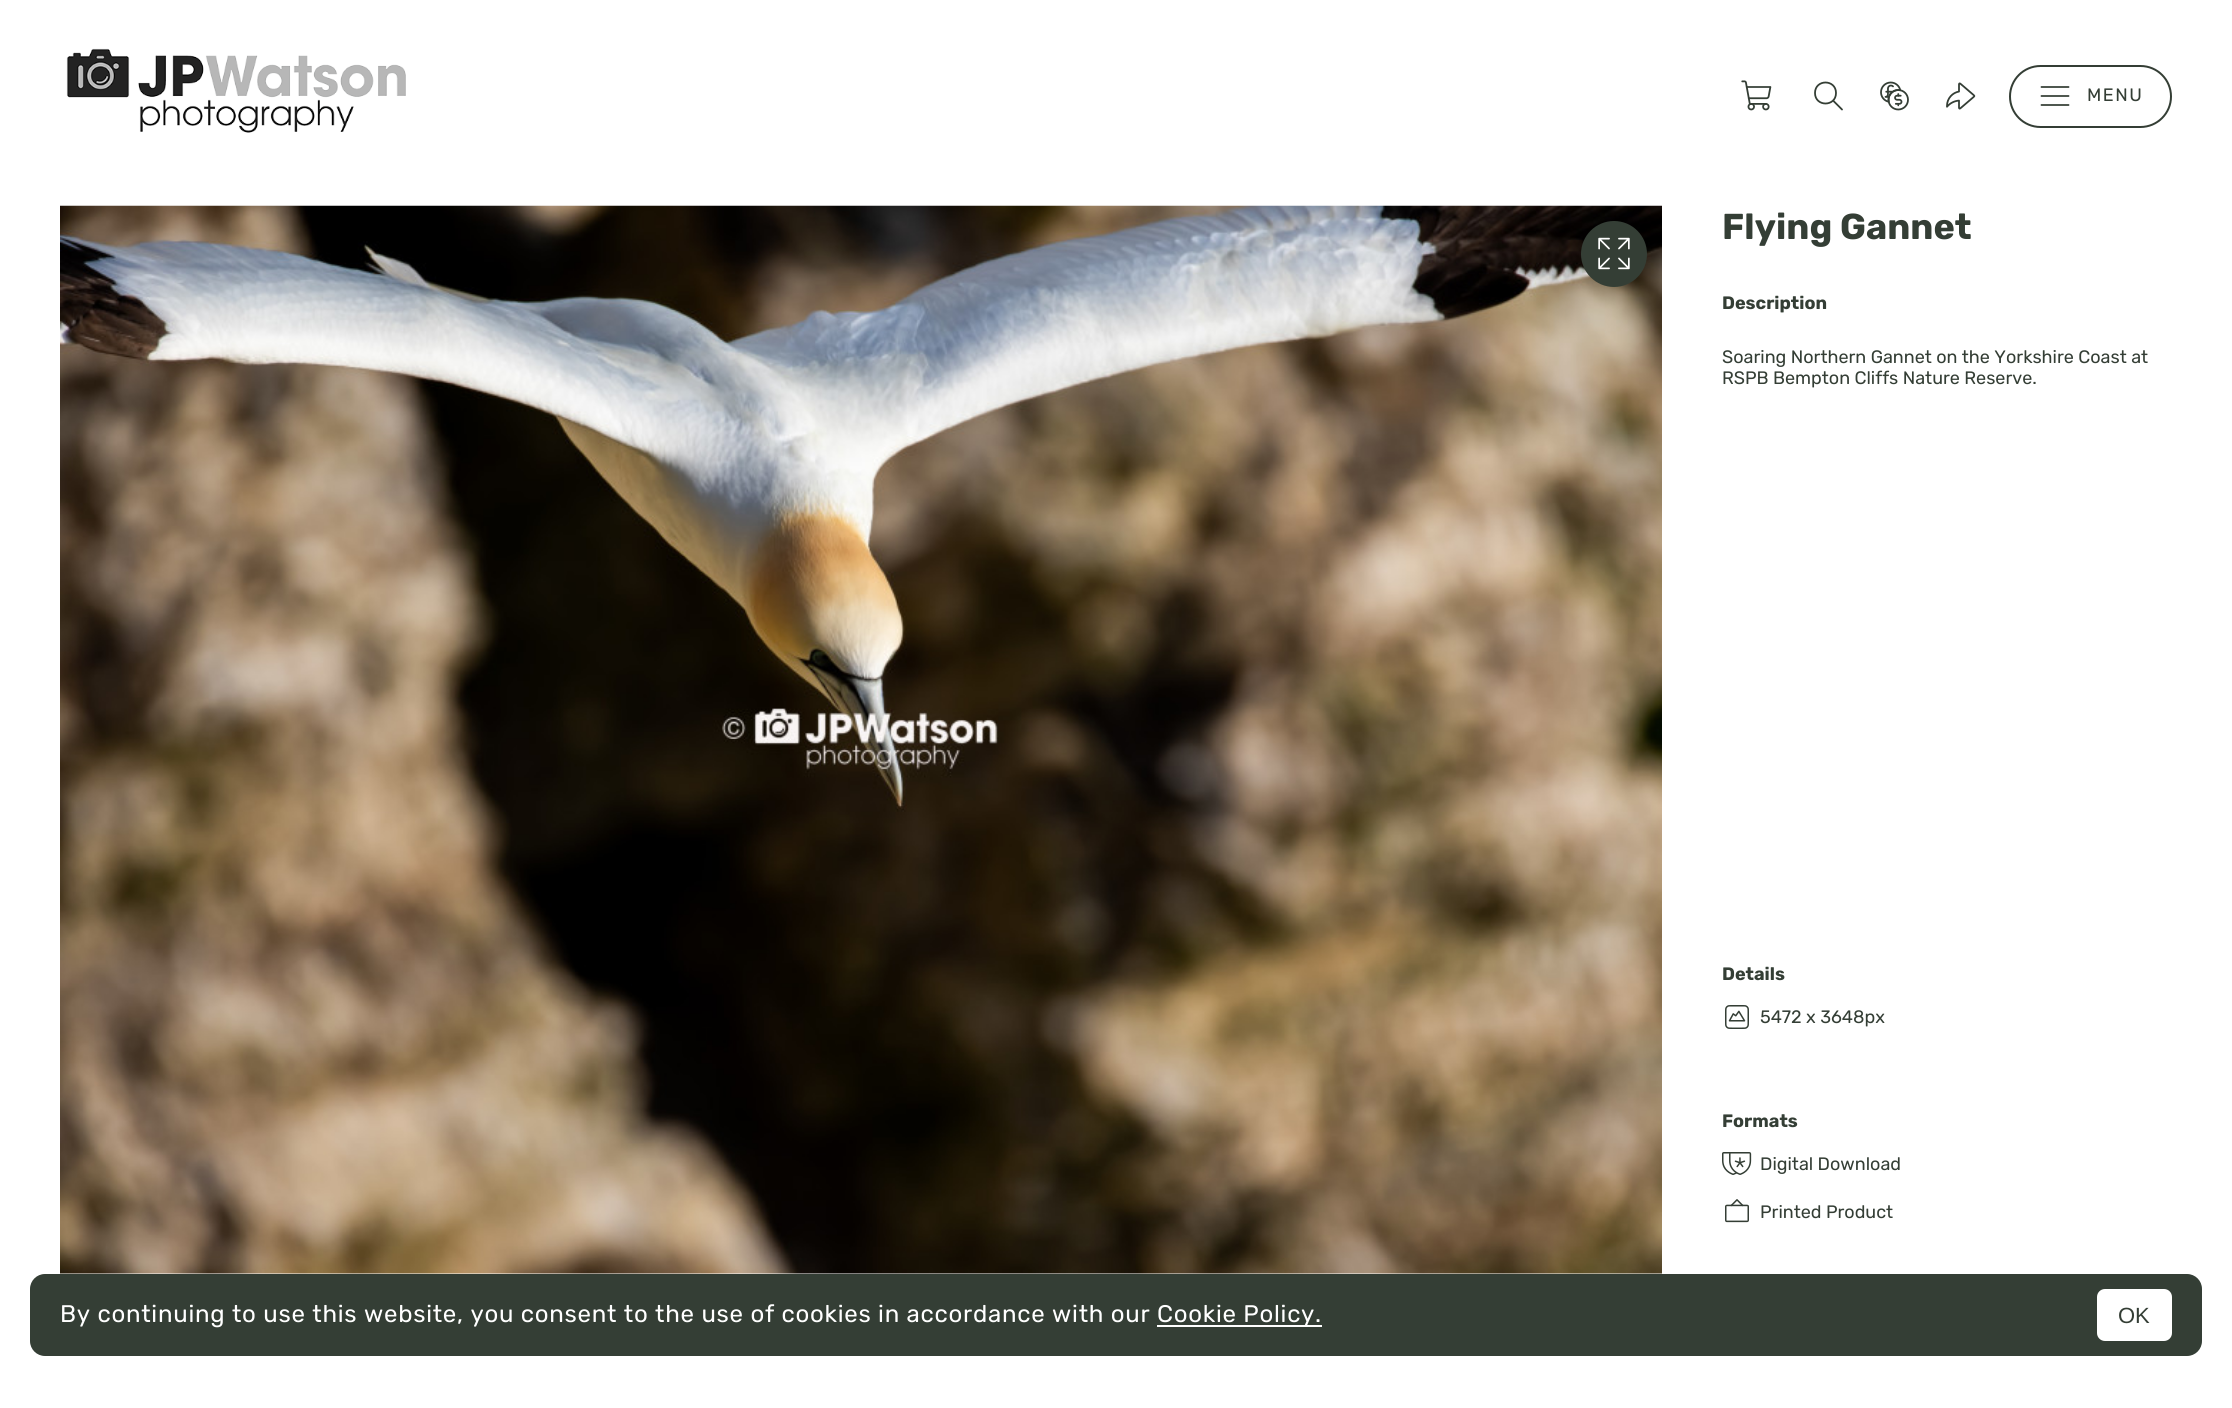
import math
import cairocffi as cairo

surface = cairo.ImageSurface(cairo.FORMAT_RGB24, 2232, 1408)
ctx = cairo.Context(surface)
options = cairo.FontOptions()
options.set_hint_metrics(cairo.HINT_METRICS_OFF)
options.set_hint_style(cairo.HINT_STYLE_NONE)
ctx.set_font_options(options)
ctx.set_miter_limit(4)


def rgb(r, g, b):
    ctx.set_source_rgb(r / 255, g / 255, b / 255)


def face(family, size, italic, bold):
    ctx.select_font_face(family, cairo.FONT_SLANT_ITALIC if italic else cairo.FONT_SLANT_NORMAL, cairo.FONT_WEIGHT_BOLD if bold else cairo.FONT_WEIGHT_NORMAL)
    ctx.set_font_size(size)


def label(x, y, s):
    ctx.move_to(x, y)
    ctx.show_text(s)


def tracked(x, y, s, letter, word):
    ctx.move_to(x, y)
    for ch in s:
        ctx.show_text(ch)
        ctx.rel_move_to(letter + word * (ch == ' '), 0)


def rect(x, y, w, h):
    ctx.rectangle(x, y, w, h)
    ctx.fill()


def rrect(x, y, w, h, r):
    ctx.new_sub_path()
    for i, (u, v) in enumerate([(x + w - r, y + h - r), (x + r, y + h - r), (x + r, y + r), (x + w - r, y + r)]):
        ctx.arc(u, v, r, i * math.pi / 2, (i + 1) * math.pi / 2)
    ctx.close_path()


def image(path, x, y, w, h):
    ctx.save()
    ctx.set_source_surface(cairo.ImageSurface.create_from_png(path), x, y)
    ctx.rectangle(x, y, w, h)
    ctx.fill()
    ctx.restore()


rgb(255, 255, 255)
ctx.paint()
image('image0.png', 66, 48, 340, 85)
image('image1.png', 1741, 80, 31, 31)
ctx.new_path()
ctx.move_to(1842, 109.5)
ctx.line_to(1833, 100.5)
ctx.move_to(1836, 93)
ctx.curve_to(1836, 107, 1815, 107, 1815, 93)
ctx.curve_to(1815, 79, 1836, 79, 1836, 93)
ctx.close_path()
rgb(52, 62, 53)
ctx.set_line_width(1.8)
ctx.set_line_cap(cairo.LINE_CAP_ROUND)
ctx.set_line_join(cairo.LINE_JOIN_ROUND)
ctx.stroke()
image('image2.png', 1880, 81, 29, 30)
image('image3.png', 1946, 82, 30, 28)
rrect(2010, 66, 161, 61, 30.5)
ctx.set_line_width(2)
ctx.set_line_cap(cairo.LINE_CAP_BUTT)
ctx.set_line_join(cairo.LINE_JOIN_MITER)
ctx.stroke()
ctx.new_path()
ctx.move_to(2041.5, 96)
ctx.line_to(2068.5, 96)
ctx.move_to(2041.5, 87)
ctx.line_to(2068.5, 87)
ctx.move_to(2041.5, 105)
ctx.line_to(2068.5, 105)
ctx.set_line_width(1.8)
ctx.set_line_cap(cairo.LINE_CAP_ROUND)
ctx.set_line_join(cairo.LINE_JOIN_ROUND)
ctx.stroke()
face('Rubik', 18, 0, 0)
tracked(2087, 101, 'MENU', 1.5, 0)
image('image4.png', 60, 205, 1602, 1069)
ctx.arc(1614, 254, 33, 0, 2 * math.pi)
ctx.fill()
image('image5.png', 1598, 237, 32, 33)
face('Rubik', 36, 0, 1)
label(1722, 239, 'Flying Gannet')
face('Rubik', 18, 0, 1)
label(1722, 309, 'Description')
face('Rubik', 18, 0, 0)
label(1722, 363, 'Soaring Northern Gannet on the Yorkshire Coast at')
label(1722, 384, 'RSPB Bempton Cliffs Nature Reserve.')
face('Rubik', 18, 0, 1)
label(1722, 980, 'Details')
image('image6.png', 1725, 1005, 24, 24)
face('Rubik', 18, 0, 0)
label(1760, 1023, '5472 x 3648px')
face('Rubik', 18, 0, 1)
label(1722, 1127, 'Formats')
image('image7.png', 1722, 1152, 30, 23)
face('Rubik', 18, 0, 0)
label(1760, 1170, 'Digital Download')
image('image8.png', 1725, 1199, 24, 24)
label(1760, 1218, 'Printed Product')
rrect(30, 1274, 2172, 82, 15)
ctx.fill()
face('Rubik', 24, 0, 0)
rgb(255, 255, 255)
tracked(60, 1322, 'By continuing to use this website, you consent to the use of cookies in accordance with our', 0.75, 0)
rect(1157, 1325, 165, 2)
tracked(1157, 1322, 'Cookie Policy.', 0.75, 0)
rrect(2097, 1289, 75, 52, 8)
ctx.fill()
face('Liberation Sans', 22, 0, 0)
rgb(52, 62, 53)
label(2118, 1323, 'OK')
surface.write_to_png('render.png')
